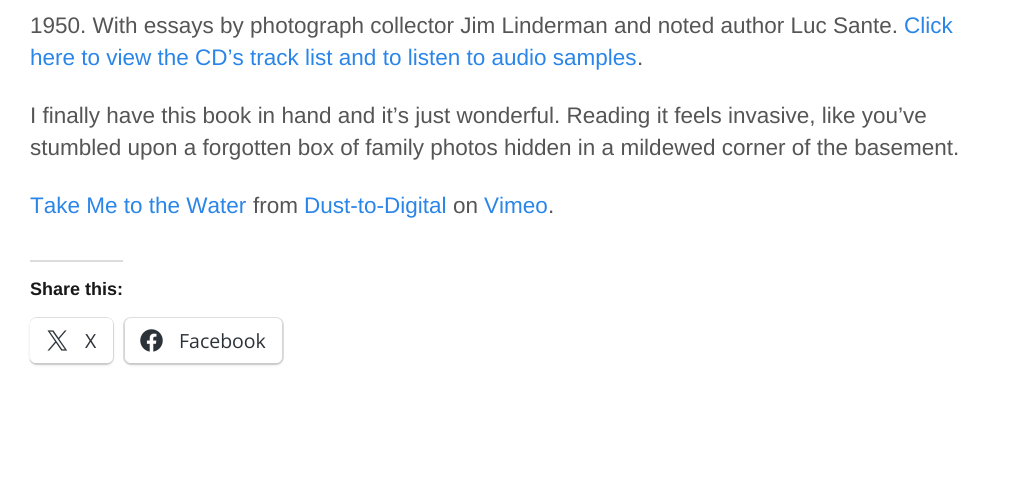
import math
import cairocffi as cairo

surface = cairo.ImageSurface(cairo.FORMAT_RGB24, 1020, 477)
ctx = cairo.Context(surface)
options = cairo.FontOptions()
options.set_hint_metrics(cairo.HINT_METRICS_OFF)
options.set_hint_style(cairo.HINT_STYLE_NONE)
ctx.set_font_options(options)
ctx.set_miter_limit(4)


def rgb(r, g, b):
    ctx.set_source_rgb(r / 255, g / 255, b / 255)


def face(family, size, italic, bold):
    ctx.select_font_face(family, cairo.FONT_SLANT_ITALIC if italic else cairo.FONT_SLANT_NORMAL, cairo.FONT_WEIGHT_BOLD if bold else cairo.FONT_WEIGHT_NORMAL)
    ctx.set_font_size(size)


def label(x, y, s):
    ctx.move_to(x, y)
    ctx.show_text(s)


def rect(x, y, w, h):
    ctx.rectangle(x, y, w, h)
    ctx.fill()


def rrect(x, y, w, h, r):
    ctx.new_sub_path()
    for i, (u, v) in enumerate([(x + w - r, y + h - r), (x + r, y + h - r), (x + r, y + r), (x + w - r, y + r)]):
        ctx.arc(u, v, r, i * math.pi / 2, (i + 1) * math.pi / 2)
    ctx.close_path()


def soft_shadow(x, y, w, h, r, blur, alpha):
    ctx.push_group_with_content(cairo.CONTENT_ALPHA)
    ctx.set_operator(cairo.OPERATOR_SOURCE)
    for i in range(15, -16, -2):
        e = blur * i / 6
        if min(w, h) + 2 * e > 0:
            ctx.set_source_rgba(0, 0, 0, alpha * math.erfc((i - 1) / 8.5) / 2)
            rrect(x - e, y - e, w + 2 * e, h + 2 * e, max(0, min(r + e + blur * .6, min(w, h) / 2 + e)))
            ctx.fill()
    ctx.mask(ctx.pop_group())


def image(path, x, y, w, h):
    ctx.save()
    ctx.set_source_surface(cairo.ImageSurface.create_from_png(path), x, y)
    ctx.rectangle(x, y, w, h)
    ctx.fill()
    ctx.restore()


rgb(255, 255, 255)
ctx.paint()
face('Liberation Sans', 22.5, 0, 0)
rgb(85, 85, 85)
label(30, 33, '1950. With essays by photograph collector Jim Linderman and noted author Luc Sante.')
rgb(42, 133, 232)
label(904, 33, 'Click')
label(30, 65, 'here to view the CD’s track list and to listen to audio samples')
rgb(85, 85, 85)
label(637, 65, '.')
label(30, 123, 'I finally have this book in hand and it’s just wonderful. Reading it feels invasive, like you’ve')
label(30, 155, 'stumbled upon a forgotten box of family photos hidden in a mildewed corner of the basement.')
rgb(42, 133, 232)
label(30, 213, 'Take Me to the Water')
rgb(85, 85, 85)
label(253, 213, 'from')
rgb(42, 133, 232)
label(304, 213, 'Dust-to-Digital')
rgb(85, 85, 85)
label(453, 213, 'on')
rgb(42, 133, 232)
label(484, 213, 'Vimeo')
rgb(85, 85, 85)
label(548, 213, '.')
rgb(220, 220, 222)
rect(30, 260, 93, 2)
face('Liberation Sans', 18, 0, 1)
rgb(24, 24, 24)
label(30, 295, 'Share this:')
ctx.save()
ctx.rectangle(30, 0, 960, 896)
ctx.clip()
rrect(30, 318, 83, 46, 7)
rgb(224, 224, 224)
ctx.stroke()
ctx.restore()
ctx.save()
ctx.set_fill_rule(cairo.FILL_RULE_EVEN_ODD)
ctx.new_path()
ctx.move_to(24, 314)
ctx.line_to(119, 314)
ctx.line_to(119, 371)
ctx.line_to(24, 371)
ctx.close_path()
ctx.move_to(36, 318)
ctx.line_to(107, 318)
ctx.curve_to(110.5, 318, 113, 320.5, 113, 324)
ctx.line_to(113, 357)
ctx.curve_to(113, 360.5, 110.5, 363, 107, 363)
ctx.line_to(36, 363)
ctx.curve_to(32.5, 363, 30, 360.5, 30, 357)
ctx.line_to(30, 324)
ctx.curve_to(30, 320.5, 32.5, 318, 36, 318)
ctx.close_path()
ctx.clip()
rgb(0, 0, 0)
soft_shadow(30, 320, 83, 45, 6, 1.5, 0.12)
ctx.restore()
rgb(255, 255, 255)
rrect(30, 318, 83, 45, 6)
ctx.fill()
image('image0.png', 47, 330, 21, 21)
face('Open Sans', 19.5, 0, 0)
rgb(44, 51, 56)
label(85, 348, 'X')
rrect(124, 318, 159, 46, 7)
rgb(224, 224, 224)
ctx.stroke()
rgb(0, 0, 0)
soft_shadow(125, 320, 157, 45, 6, 1.5, 0.12)
rgb(255, 255, 255)
rrect(125, 318, 157, 45, 6)
ctx.fill()
image('image1.png', 140, 329, 23, 23)
rgb(44, 51, 56)
label(179, 348, 'Facebook')
surface.write_to_png('render.png')
